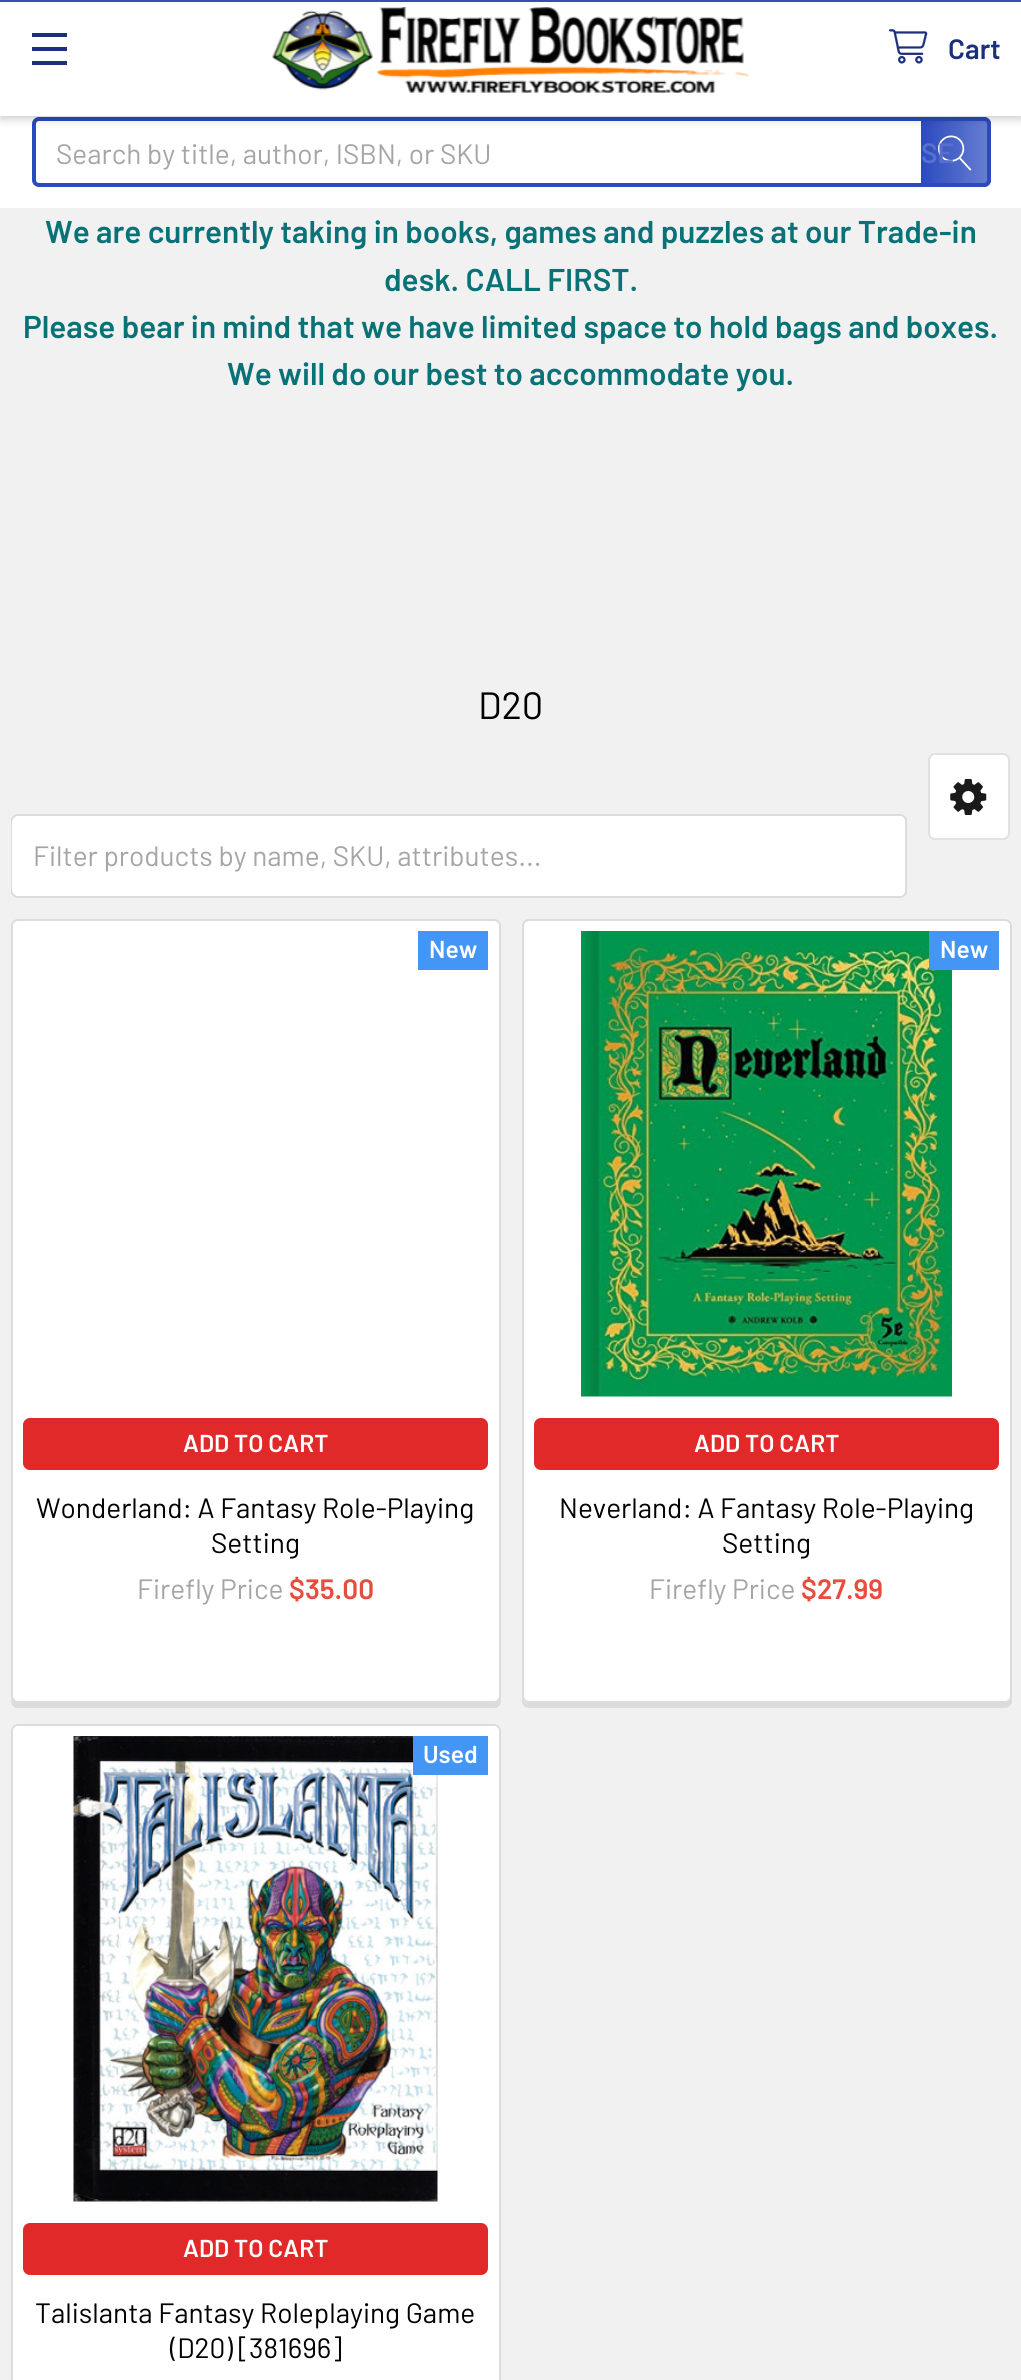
import math
import cairocffi as cairo

surface = cairo.ImageSurface(cairo.FORMAT_RGB24, 1021, 2380)
ctx = cairo.Context(surface)
options = cairo.FontOptions()
options.set_hint_metrics(cairo.HINT_METRICS_OFF)
options.set_hint_style(cairo.HINT_STYLE_NONE)
ctx.set_font_options(options)
ctx.set_miter_limit(4)


def rgb(r, g, b):
    ctx.set_source_rgb(r / 255, g / 255, b / 255)


def face(family, size, italic, bold):
    ctx.select_font_face(family, cairo.FONT_SLANT_ITALIC if italic else cairo.FONT_SLANT_NORMAL, cairo.FONT_WEIGHT_BOLD if bold else cairo.FONT_WEIGHT_NORMAL)
    ctx.set_font_size(size)


def label(x, y, s):
    ctx.move_to(x, y)
    ctx.show_text(s)


def rect(x, y, w, h):
    ctx.rectangle(x, y, w, h)
    ctx.fill()


def rrect(x, y, w, h, r):
    ctx.new_sub_path()
    for i, (u, v) in enumerate([(x + w - r, y + h - r), (x + r, y + h - r), (x + r, y + r), (x + w - r, y + r)]):
        ctx.arc(u, v, r, i * math.pi / 2, (i + 1) * math.pi / 2)
    ctx.close_path()


def soft_shadow(x, y, w, h, r, blur, alpha):
    ctx.push_group_with_content(cairo.CONTENT_ALPHA)
    ctx.set_operator(cairo.OPERATOR_SOURCE)
    for i in range(15, -16, -2):
        e = blur * i / 6
        if min(w, h) + 2 * e > 0:
            ctx.set_source_rgba(0, 0, 0, alpha * math.erfc((i - 1) / 8.5) / 2)
            rrect(x - e, y - e, w + 2 * e, h + 2 * e, max(0, min(r + e + blur * .6, min(w, h) / 2 + e)))
            ctx.fill()
    ctx.mask(ctx.pop_group())


def image(path, x, y, w, h):
    ctx.save()
    ctx.set_source_surface(cairo.ImageSurface.create_from_png(path), x, y)
    ctx.rectangle(x, y, w, h)
    ctx.fill()
    ctx.restore()


rgb(241, 241, 242)
ctx.paint()
rgb(255, 255, 255)
rect(0, 116, 1021, 92)
rrect(34, 119, 955, 66, 5)
rgb(42, 74, 191)
ctx.set_line_width(4)
ctx.stroke()
gradient = cairo.LinearGradient(921, 152, 991, 152)
gradient.add_color_stop_rgba(0, 0.165, 0.29, 0.749, 1)
gradient.add_color_stop_rgba(1, 0.165, 0.29, 0.749, 0.7)
ctx.set_source(gradient)
ctx.new_path()
ctx.move_to(921, 117)
ctx.line_to(984, 117)
ctx.curve_to(988, 117, 991, 120, 991, 124)
ctx.line_to(991, 180)
ctx.curve_to(991, 184, 988, 187, 984, 187)
ctx.line_to(921, 187)
ctx.close_path()
ctx.fill()
rgb(0, 0, 0)
soft_shadow(0, 4, 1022, 115, 0, 4.5, 0.2)
rgb(255, 255, 255)
rect(0, 2, 1021, 114)
rgb(56, 79, 178)
rect(0, 0, 1021, 2)
rgb(27, 47, 124)
rect(32, 47, 35, 4)
rect(32, 33, 35, 4)
rect(32, 61, 35, 4)
image('image0.png', 272, 7, 478, 86)
image('image1.png', 889, 29, 39, 35)
face('Barlow SemiBold', 28, 0, 0)
label(948, 59, 'Cart')
face('Barlow', 28, 0, 0)
rgb(165, 165, 165)
label(56, 164, 'Search by title, author, ISBN, or SKU')
image('image2.png', 938, 135, 34, 36)
face('Barlow SemiBold', 28, 0, 0)
rgb(87, 112, 204)
label(921, 163, 'SE')
face('Barlow SemiBold', 31.5, 0, 0)
rgb(9, 114, 118)
label(45, 243, 'We are currently taking in books, games and puzzles at our Trade-in')
label(384, 291, 'desk. CALL FIRST.')
label(23, 338, 'Please bear in mind that we have limited space to hold bags and boxes.')
label(227, 385, 'We will do our best to accommodate you.')
face('Barlow', 38, 0, 0)
rgb(0, 0, 0)
label(478, 719, 'D20')
rgb(255, 255, 255)
rrect(929, 754, 80, 85, 6)
ctx.fill_preserve()
rgb(224, 225, 228)
ctx.set_line_width(2)
ctx.stroke()
image('image3.png', 950, 779, 37, 36)
rgb(255, 255, 255)
rrect(12, 815, 894, 82, 6)
ctx.fill_preserve()
rgb(220, 220, 220)
ctx.stroke()
rgb(255, 255, 255)
rrect(12, 816, 893, 80, 7)
ctx.fill()
face('Barlow', 28, 0, 0)
rgb(165, 165, 165)
label(33, 866, 'Filter products by name, SKU, attributes...')
rgb(220, 220, 220)
ctx.new_path()
ctx.move_to(11, 1698)
ctx.line_to(11, 1701)
ctx.curve_to(11, 1705, 14, 1708, 18, 1708)
ctx.line_to(494, 1708)
ctx.curve_to(498, 1708, 501, 1705, 501, 1701)
ctx.line_to(501, 931)
ctx.line_to(500, 928)
ctx.line_to(500, 1696)
ctx.curve_to(500, 1700, 497, 1703, 494, 1703)
ctx.line_to(18, 1703)
ctx.curve_to(15, 1703, 12, 1701, 11, 1698)
ctx.close_path()
ctx.fill()
rgb(255, 255, 255)
rrect(12, 920, 488, 782, 6)
ctx.fill_preserve()
rgb(220, 220, 220)
ctx.stroke()
rgb(68, 150, 246)
rect(418, 931, 70, 39)
face('Barlow SemiBold', 24.5, 0, 0)
rgb(255, 255, 255)
label(429, 958, 'New')
rgb(225, 41, 41)
rrect(24, 1419, 463, 50, 6)
ctx.fill_preserve()
ctx.stroke()
rgb(255, 255, 255)
label(183, 1452, 'ADD TO CART')
face('Barlow', 28, 0, 0)
rgb(0, 0, 0)
label(36, 1518, 'Wonderland: A Fantasy Role-Playing')
label(211, 1553, 'Setting')
rgb(165, 165, 165)
label(137, 1599, 'Firefly Price')
face('Barlow SemiBold', 28, 0, 0)
rgb(231, 76, 60)
label(289, 1599, '$35.00')
rgb(220, 220, 220)
ctx.new_path()
ctx.move_to(522, 1698)
ctx.line_to(522, 1701)
ctx.curve_to(522, 1705, 525, 1708, 529, 1708)
ctx.line_to(1005, 1708)
ctx.curve_to(1009, 1708, 1012, 1705, 1012, 1701)
ctx.line_to(1012, 931)
ctx.line_to(1012, 928)
ctx.line_to(1012, 1696)
ctx.curve_to(1012, 1700, 1008, 1703, 1004, 1703)
ctx.line_to(528, 1703)
ctx.curve_to(526, 1703, 523, 1701, 522, 1698)
ctx.close_path()
ctx.fill()
rgb(255, 255, 255)
rrect(523, 920, 488, 782, 6)
ctx.fill_preserve()
rgb(220, 220, 220)
ctx.stroke()
image('image4.png', 581, 931, 371, 466)
rgb(68, 150, 246)
rect(929, 931, 70, 39)
face('Barlow SemiBold', 24.5, 0, 0)
rgb(255, 255, 255)
label(940, 958, 'New')
rgb(225, 41, 41)
rrect(535, 1419, 463, 50, 6)
ctx.fill_preserve()
ctx.stroke()
rgb(255, 255, 255)
label(694, 1452, 'ADD TO CART')
face('Barlow', 28, 0, 0)
rgb(0, 0, 0)
label(559, 1518, 'Neverland: A Fantasy Role-Playing')
label(722, 1553, 'Setting')
rgb(165, 165, 165)
label(649, 1599, 'Firefly Price')
face('Barlow SemiBold', 28, 0, 0)
rgb(231, 76, 60)
label(801, 1599, '$27.99')
rgb(255, 255, 255)
rrect(12, 1725, 488, 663, 6)
ctx.fill_preserve()
rgb(220, 220, 220)
ctx.stroke()
image('image5.png', 73, 1736, 365, 466)
rgb(68, 150, 246)
rect(413, 1736, 75, 39)
face('Barlow SemiBold', 24.5, 0, 0)
rgb(255, 255, 255)
label(423, 1763, 'Used')
rgb(225, 41, 41)
rrect(24, 2224, 463, 50, 6)
ctx.fill_preserve()
ctx.stroke()
rgb(255, 255, 255)
label(183, 2257, 'ADD TO CART')
face('Barlow', 28, 0, 0)
rgb(0, 0, 0)
label(35, 2323, 'Talislanta Fantasy Roleplaying Game')
label(170, 2358, '(D20) [381696]')
surface.write_to_png('render.png')
